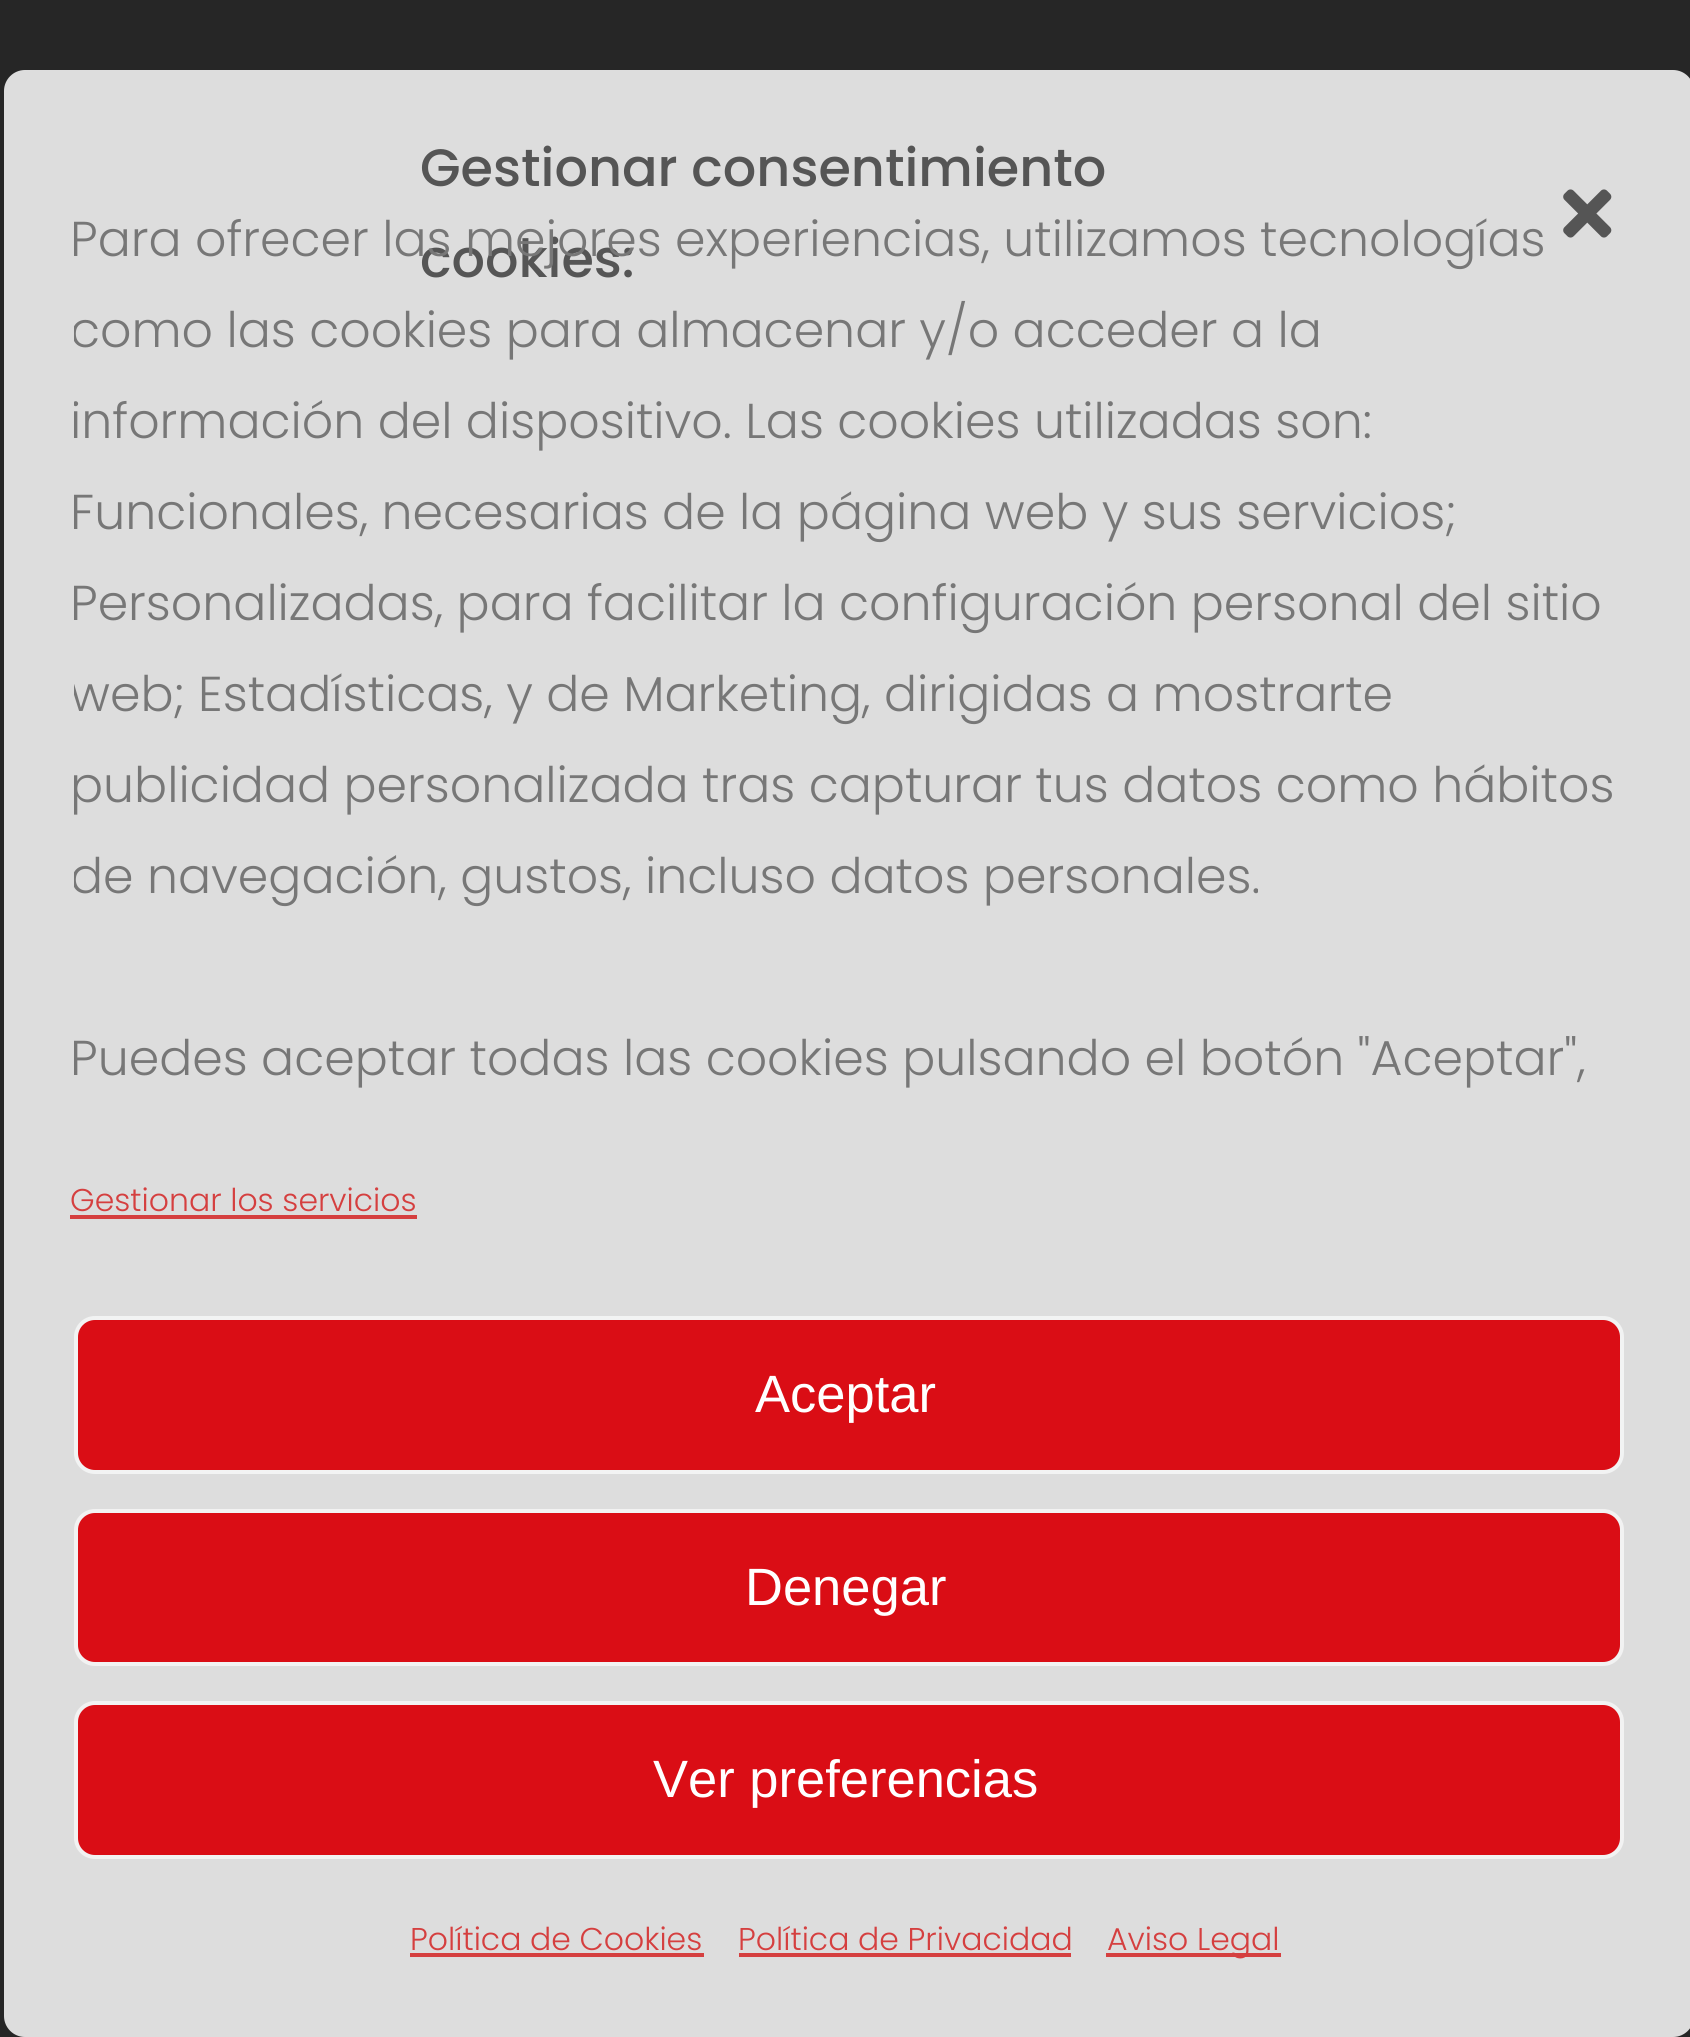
import math
import cairocffi as cairo

surface = cairo.ImageSurface(cairo.FORMAT_RGB24, 1690, 2037)
ctx = cairo.Context(surface)
options = cairo.FontOptions()
options.set_hint_metrics(cairo.HINT_METRICS_OFF)
options.set_hint_style(cairo.HINT_STYLE_NONE)
ctx.set_font_options(options)
ctx.set_miter_limit(4)


def rgb(r, g, b):
    ctx.set_source_rgb(r / 255, g / 255, b / 255)


def face(family, size, italic, bold):
    ctx.select_font_face(family, cairo.FONT_SLANT_ITALIC if italic else cairo.FONT_SLANT_NORMAL, cairo.FONT_WEIGHT_BOLD if bold else cairo.FONT_WEIGHT_NORMAL)
    ctx.set_font_size(size)


def label(x, y, s):
    ctx.move_to(x, y)
    ctx.show_text(s)


def rect(x, y, w, h):
    ctx.rectangle(x, y, w, h)
    ctx.fill()


def rrect(x, y, w, h, r):
    ctx.new_sub_path()
    for i, (u, v) in enumerate([(x + w - r, y + h - r), (x + r, y + h - r), (x + r, y + r), (x + w - r, y + r)]):
        ctx.arc(u, v, r, i * math.pi / 2, (i + 1) * math.pi / 2)
    ctx.close_path()


def image(path, x, y, w, h):
    ctx.save()
    ctx.set_source_surface(cairo.ImageSurface.create_from_png(path), x, y)
    ctx.rectangle(x, y, w, h)
    ctx.fill()
    ctx.restore()


rgb(38, 38, 38)
ctx.paint()
rgb(221, 221, 221)
rrect(4, 70, 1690, 1967, 21)
ctx.fill()
face('Poppins Medium', 52.5, 0, 0)
rgb(85, 85, 85)
label(420, 186, 'Gestionar consentimiento')
label(420, 277, 'cookies:')
image('image0.png', 1563, 189, 49, 49)
ctx.save()
ctx.rectangle(74, 193, 1550, 927)
ctx.clip()
face('Poppins Light', 49, 0, 0)
rgb(119, 119, 119)
label(70, 256, 'Para ofrecer las mejores experiencias, utilizamos tecnologías')
label(70, 347, 'como las cookies para almacenar y/o acceder a la')
label(70, 438, 'información del dispositivo. Las cookies utilizadas son:')
label(70, 529, 'Funcionales, necesarias de la página web y sus servicios;')
label(70, 620, 'Personalizadas, para facilitar la configuración personal del sitio')
label(70, 711, 'web; Estadísticas, y de Marketing, dirigidas a mostrarte')
label(70, 802, 'publicidad personalizada tras capturar tus datos como hábitos')
label(70, 893, 'de navegación, gustos, incluso datos personales.')
label(70, 1075, 'Puedes aceptar todas las cookies pulsando el botón "Aceptar",')
ctx.restore()
face('Poppins Light', 31.5, 0, 0)
rgb(213, 63, 63)
label(70, 1211, 'Gestionar los servicios')
rect(70, 1215, 347, 4)
rgb(218, 13, 21)
rrect(76, 1318, 1546, 154, 19)
ctx.fill_preserve()
rgb(242, 243, 243)
ctx.set_line_width(4)
ctx.stroke()
face('Liberation Sans', 52.5, 0, 0)
rgb(255, 255, 255)
label(755, 1412, 'Aceptar')
rgb(218, 13, 21)
rrect(76, 1511, 1546, 153, 19)
ctx.fill_preserve()
rgb(242, 242, 242)
ctx.stroke()
rgb(255, 255, 255)
label(745, 1605, 'Denegar')
rgb(218, 13, 21)
rrect(76, 1703, 1546, 154, 19)
ctx.fill_preserve()
rgb(242, 242, 242)
ctx.stroke()
rgb(255, 255, 255)
label(653, 1797, 'Ver preferencias')
face('Poppins Light', 31.5, 0, 0)
rgb(213, 63, 63)
label(410, 1950, 'Política de Cookies')
rect(410, 1953, 294, 4)
label(738, 1950, 'Política de Privacidad')
rect(739, 1953, 332, 4)
rect(1106, 1953, 175, 4)
label(1107, 1950, 'Aviso Legal')
surface.write_to_png('render.png')
